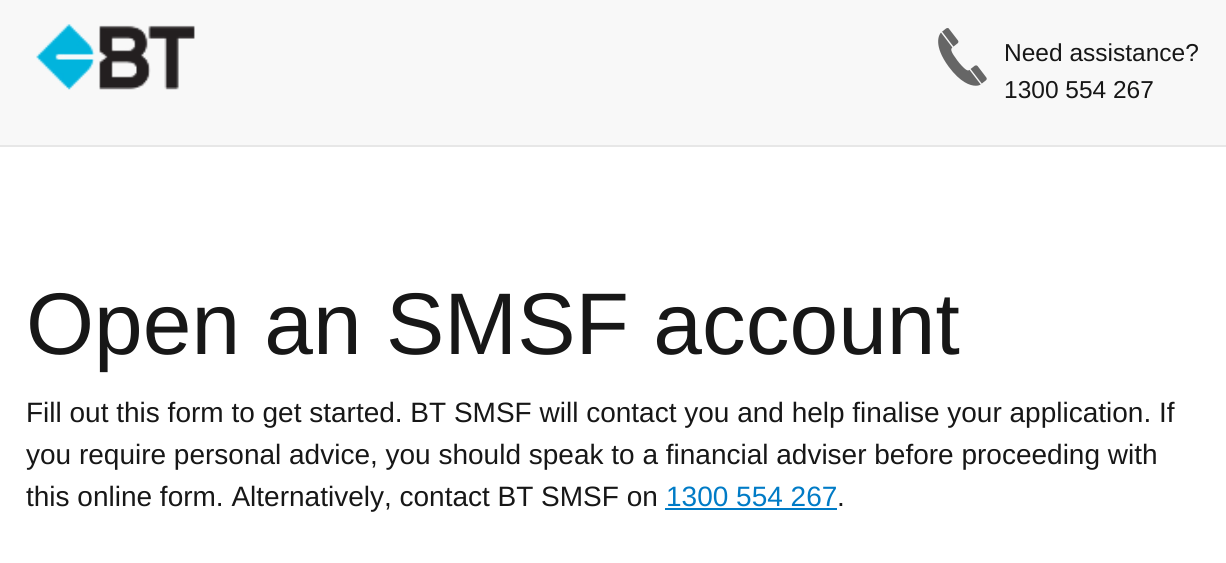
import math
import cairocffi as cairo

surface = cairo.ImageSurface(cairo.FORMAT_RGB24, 1226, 563)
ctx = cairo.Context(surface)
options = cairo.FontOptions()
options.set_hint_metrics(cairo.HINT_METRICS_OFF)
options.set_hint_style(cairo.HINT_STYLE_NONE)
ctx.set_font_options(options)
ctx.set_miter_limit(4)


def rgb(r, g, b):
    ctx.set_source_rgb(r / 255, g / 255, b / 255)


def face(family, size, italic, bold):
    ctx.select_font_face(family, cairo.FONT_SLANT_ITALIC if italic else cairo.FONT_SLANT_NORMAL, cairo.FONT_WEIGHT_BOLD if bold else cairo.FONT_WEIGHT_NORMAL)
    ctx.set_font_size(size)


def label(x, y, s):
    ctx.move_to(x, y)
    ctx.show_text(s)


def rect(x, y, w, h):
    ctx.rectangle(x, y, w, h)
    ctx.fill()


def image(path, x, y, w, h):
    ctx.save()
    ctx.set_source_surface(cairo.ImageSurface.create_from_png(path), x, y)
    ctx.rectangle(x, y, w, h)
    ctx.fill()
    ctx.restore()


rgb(255, 255, 255)
ctx.paint()
rgb(248, 248, 248)
rect(0, 0, 1226, 145)
rgb(231, 231, 231)
rect(0, 145, 1226, 2)
image('image0.png', 36, 24, 159, 66)
image('image1.png', 938, 28, 49, 58)
face('Liberation Sans', 24.5, 0, 0)
rgb(23, 23, 23)
label(1004, 61, 'Need assistance?')
label(1004, 98, '1300 554 267')
face('Liberation Sans', 87.5, 0, 0)
label(26, 354, 'Open an SMSF account')
face('Liberation Sans', 28, 0, 0)
label(26, 422, 'Fill out this form to get started. BT SMSF will contact you and help finalise your application. If')
label(26, 464, 'you require personal advice, you should speak to a financial adviser before proceeding with')
label(26, 506, 'this online form. Alternatively, contact BT SMSF on')
rgb(0, 123, 198)
label(666, 506, '1300 554 267')
rect(665, 508, 172, 2)
rgb(23, 23, 23)
label(837, 506, '.')
surface.write_to_png('render.png')
